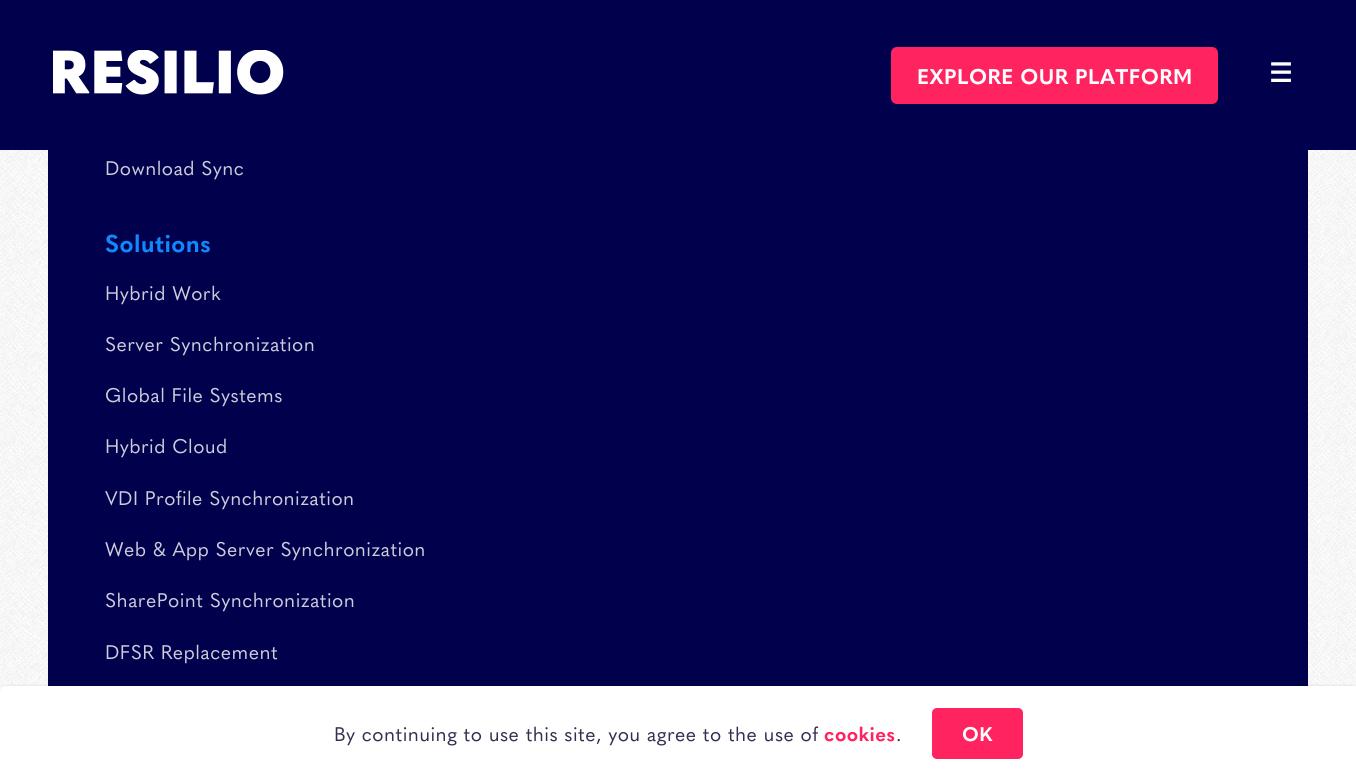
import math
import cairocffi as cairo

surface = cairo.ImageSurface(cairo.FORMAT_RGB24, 1356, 781)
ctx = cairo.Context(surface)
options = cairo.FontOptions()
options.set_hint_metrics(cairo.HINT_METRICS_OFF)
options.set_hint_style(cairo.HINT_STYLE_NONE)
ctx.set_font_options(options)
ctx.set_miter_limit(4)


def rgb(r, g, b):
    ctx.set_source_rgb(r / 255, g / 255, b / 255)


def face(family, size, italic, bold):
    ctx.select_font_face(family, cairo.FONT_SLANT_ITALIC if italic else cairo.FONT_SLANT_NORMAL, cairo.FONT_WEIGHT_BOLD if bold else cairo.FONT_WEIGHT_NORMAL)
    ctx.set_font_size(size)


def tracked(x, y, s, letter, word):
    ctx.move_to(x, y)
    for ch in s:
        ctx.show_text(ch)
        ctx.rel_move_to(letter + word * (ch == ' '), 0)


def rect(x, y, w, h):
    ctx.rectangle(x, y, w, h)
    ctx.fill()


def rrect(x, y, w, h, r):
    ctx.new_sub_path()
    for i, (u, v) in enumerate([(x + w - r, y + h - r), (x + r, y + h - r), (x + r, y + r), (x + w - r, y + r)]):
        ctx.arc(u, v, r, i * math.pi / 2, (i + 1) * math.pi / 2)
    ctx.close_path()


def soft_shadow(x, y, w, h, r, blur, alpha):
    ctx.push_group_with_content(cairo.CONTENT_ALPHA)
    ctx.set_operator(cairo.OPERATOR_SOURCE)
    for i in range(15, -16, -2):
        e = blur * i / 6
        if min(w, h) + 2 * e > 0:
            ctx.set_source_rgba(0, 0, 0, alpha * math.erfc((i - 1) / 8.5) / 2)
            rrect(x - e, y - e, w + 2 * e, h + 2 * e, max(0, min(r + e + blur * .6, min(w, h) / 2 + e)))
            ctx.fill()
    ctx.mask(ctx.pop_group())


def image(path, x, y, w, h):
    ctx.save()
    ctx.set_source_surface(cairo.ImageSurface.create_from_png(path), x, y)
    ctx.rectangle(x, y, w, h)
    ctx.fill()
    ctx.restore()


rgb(255, 255, 255)
ctx.paint()
rgb(0, 0, 76)
rect(0, 0, 1356, 150)
image('image0.png', 53, 50, 231, 45)
rgb(255, 35, 96)
rrect(892.5, 48.5, 324, 54, 4.5)
ctx.fill_preserve()
ctx.set_line_width(3)
ctx.stroke()
face('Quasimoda', 21, 0, 1)
rgb(255, 255, 255)
tracked(917, 84, 'EXPLORE OUR PLATFORM', 0.45, 0)
face('DejaVu Sans', 26, 0, 1)
tracked(1269, 82, '☰', 0.45, 0)
image('image1.png', 0, 150, 1356, 542)
rgb(0, 0, 76)
rect(48, 150, 1260, 536)
face('Quasimoda', 19.5, 0, 0)
rgb(204, 204, 219)
tracked(105, 175, 'Download Sync', 0.45, 0)
face('Quasimoda', 24, 0, 1)
rgb(16, 136, 255)
tracked(105, 252, 'Solutions', 0.45, 0)
face('Quasimoda', 19.5, 0, 0)
rgb(204, 204, 219)
tracked(105, 300, 'Hybrid Work', 0.45, 0)
tracked(105, 351, 'Server Synchronization', 0.45, 0)
tracked(105, 402, 'Global File Systems', 0.45, 0)
tracked(105, 453, 'Hybrid Cloud', 0.45, 0)
tracked(105, 505, 'VDI Profile Synchronization', 0.45, 0)
tracked(105, 556, 'Web & App Server Synchronization', 0.45, 0)
tracked(105, 607, 'SharePoint Synchronization', 0.45, 0)
tracked(105, 659, 'DFSR Replacement', 0.45, 0)
rgb(0, 0, 0)
soft_shadow(2, 687, 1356, 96, 6, 2, 0.2)
rgb(255, 255, 255)
ctx.new_path()
ctx.move_to(6, 686)
ctx.line_to(1356, 686)
ctx.line_to(1356, 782)
ctx.line_to(0, 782)
ctx.line_to(0, 692)
ctx.curve_to(0, 688.5, 2.5, 686, 6, 686)
ctx.close_path()
ctx.fill()
rgb(48, 48, 80)
tracked(334, 741, 'By continuing to use this site, you agree to the use of', 0.45, 0)
face('Quasimoda', 19.5, 0, 1)
rgb(255, 35, 96)
tracked(824, 741, 'cookies', 0.45, 0)
face('Quasimoda', 19.5, 0, 0)
rgb(48, 48, 80)
tracked(896, 741, '.', 0.45, 0)
rgb(255, 35, 96)
rrect(932, 708, 91, 51, 5)
ctx.fill()
face('Quasimoda', 19.5, 0, 1)
rgb(255, 255, 255)
tracked(962, 741, 'OK', 0.45, 0)
surface.write_to_png('render.png')
